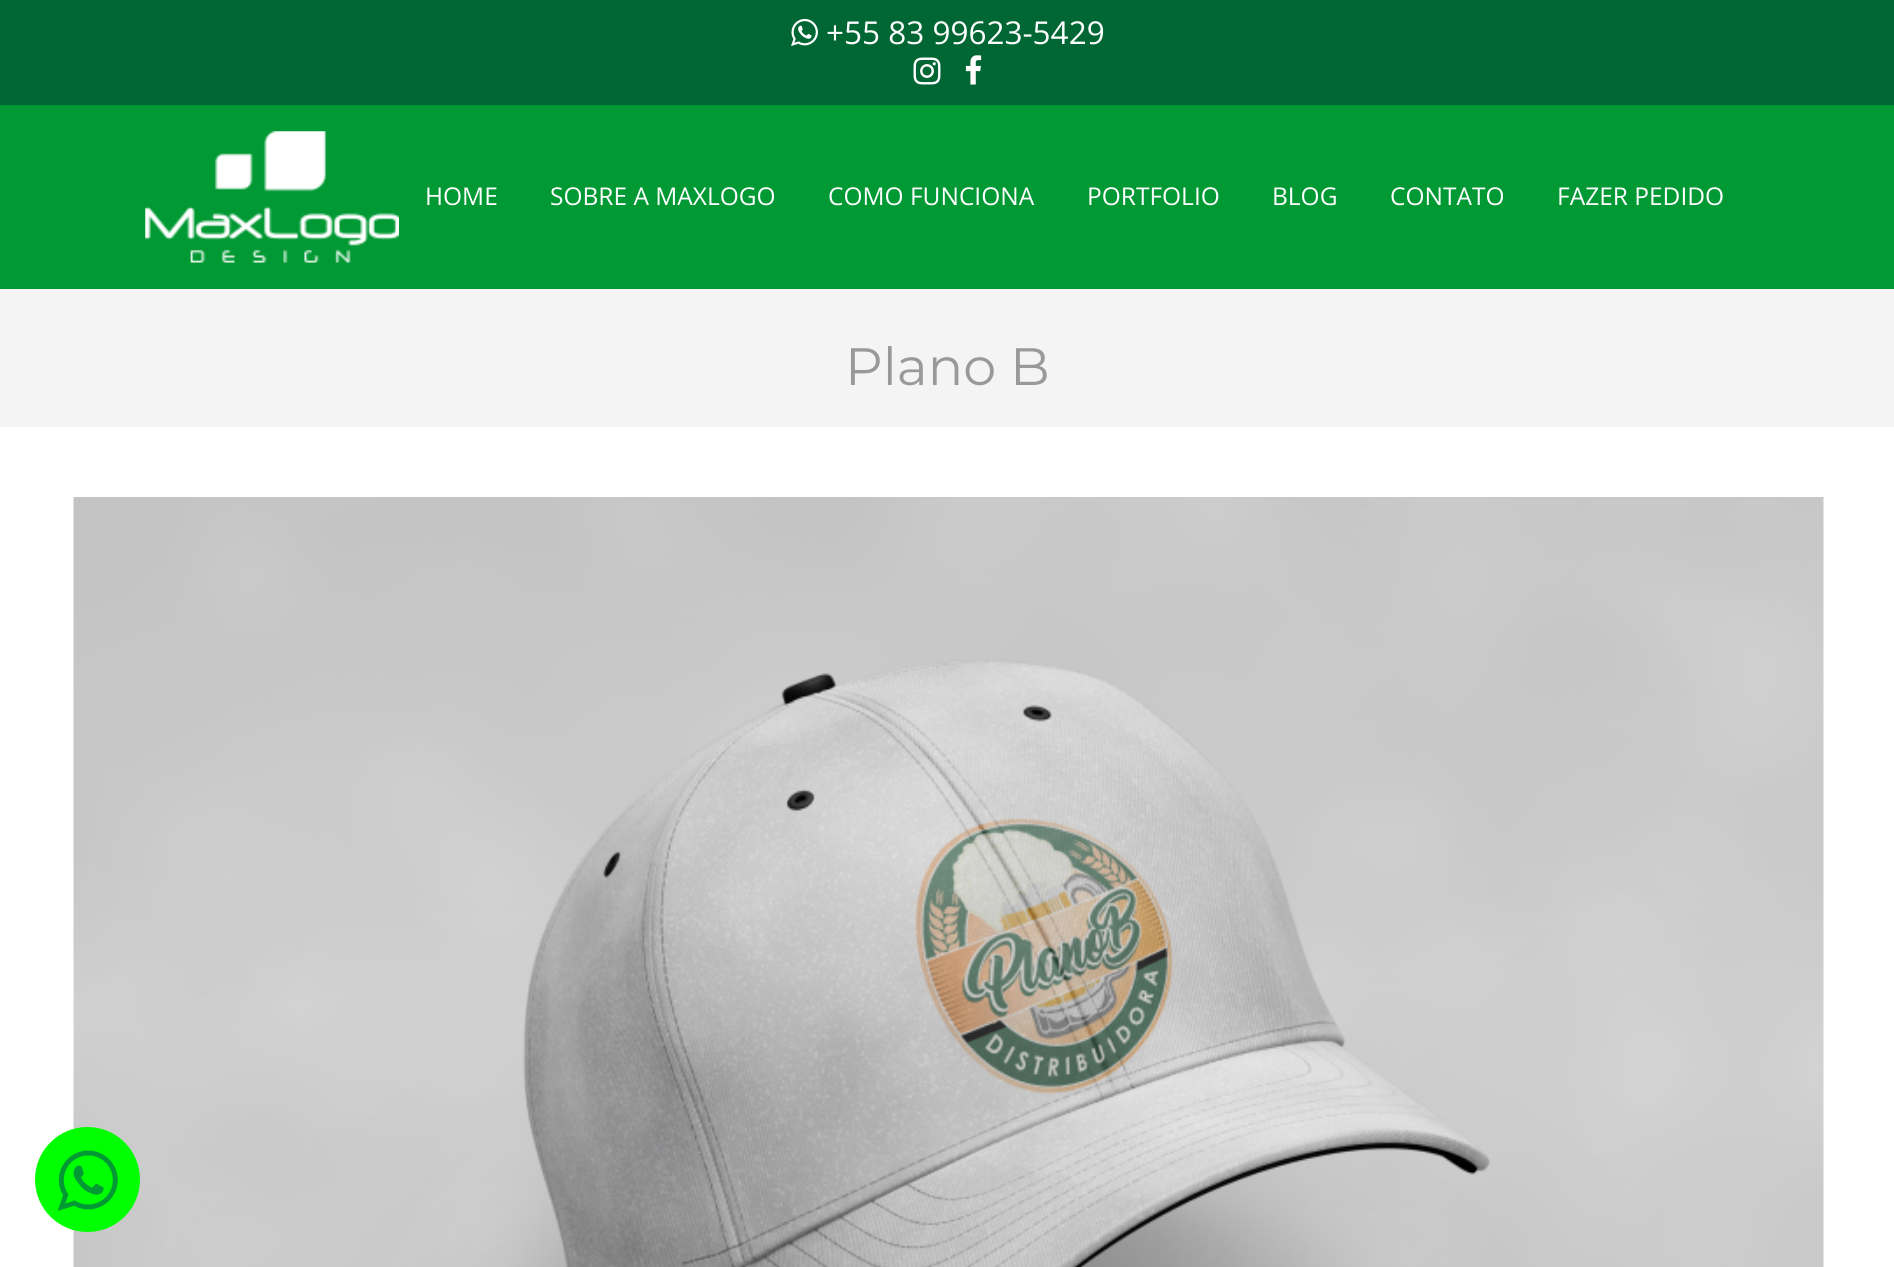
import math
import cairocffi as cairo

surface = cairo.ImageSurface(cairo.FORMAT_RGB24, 1894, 1267)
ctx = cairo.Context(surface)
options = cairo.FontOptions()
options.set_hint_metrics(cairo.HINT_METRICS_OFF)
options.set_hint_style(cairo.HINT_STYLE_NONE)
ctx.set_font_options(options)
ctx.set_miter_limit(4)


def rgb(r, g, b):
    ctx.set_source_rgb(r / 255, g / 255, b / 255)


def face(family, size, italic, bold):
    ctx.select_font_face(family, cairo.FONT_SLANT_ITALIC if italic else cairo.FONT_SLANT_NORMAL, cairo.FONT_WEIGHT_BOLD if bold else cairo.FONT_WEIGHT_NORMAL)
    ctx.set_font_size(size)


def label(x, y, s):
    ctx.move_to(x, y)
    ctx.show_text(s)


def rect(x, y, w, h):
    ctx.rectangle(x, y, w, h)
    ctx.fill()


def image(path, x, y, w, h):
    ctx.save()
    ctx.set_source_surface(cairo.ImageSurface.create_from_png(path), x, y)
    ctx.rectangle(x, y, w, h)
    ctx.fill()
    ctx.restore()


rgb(255, 255, 255)
ctx.paint()
rgb(0, 102, 51)
rect(0, 0, 1894, 105)
image('image0.png', 791, 18, 27, 28)
face('Open Sans', 31.5, 0, 0)
rgb(255, 255, 255)
label(826, 44, '+55 83 99623-5429')
image('image1.png', 913, 57, 28, 28)
image('image2.png', 965, 55, 17, 30)
rgb(0, 153, 51)
rect(0, 105, 1894, 184)
image('image3.png', 145, 131, 254, 132)
face('Open Sans', 24.5, 0, 0)
rgb(255, 255, 255)
label(425, 205, 'HOME')
label(550, 205, 'SOBRE A MAXLOGO')
label(828, 205, 'COMO FUNCIONA')
label(1087, 205, 'PORTFOLIO')
label(1272, 205, 'BLOG')
label(1390, 205, 'CONTATO')
label(1557, 205, 'FAZER PEDIDO')
rgb(244, 244, 244)
rect(0, 289, 1894, 138)
face('Montserrat Thin', 52.5, 0, 0)
rgb(153, 153, 153)
label(845, 385, 'Plano B')
image('image4.png', 73, 497, 1751, 770)
rgb(0, 255, 0)
ctx.arc(87.5, 1179.5, 52.5, 0, 2 * math.pi)
ctx.fill()
image('image5.png', 57, 1150, 61, 61)
surface.write_to_png('render.png')
